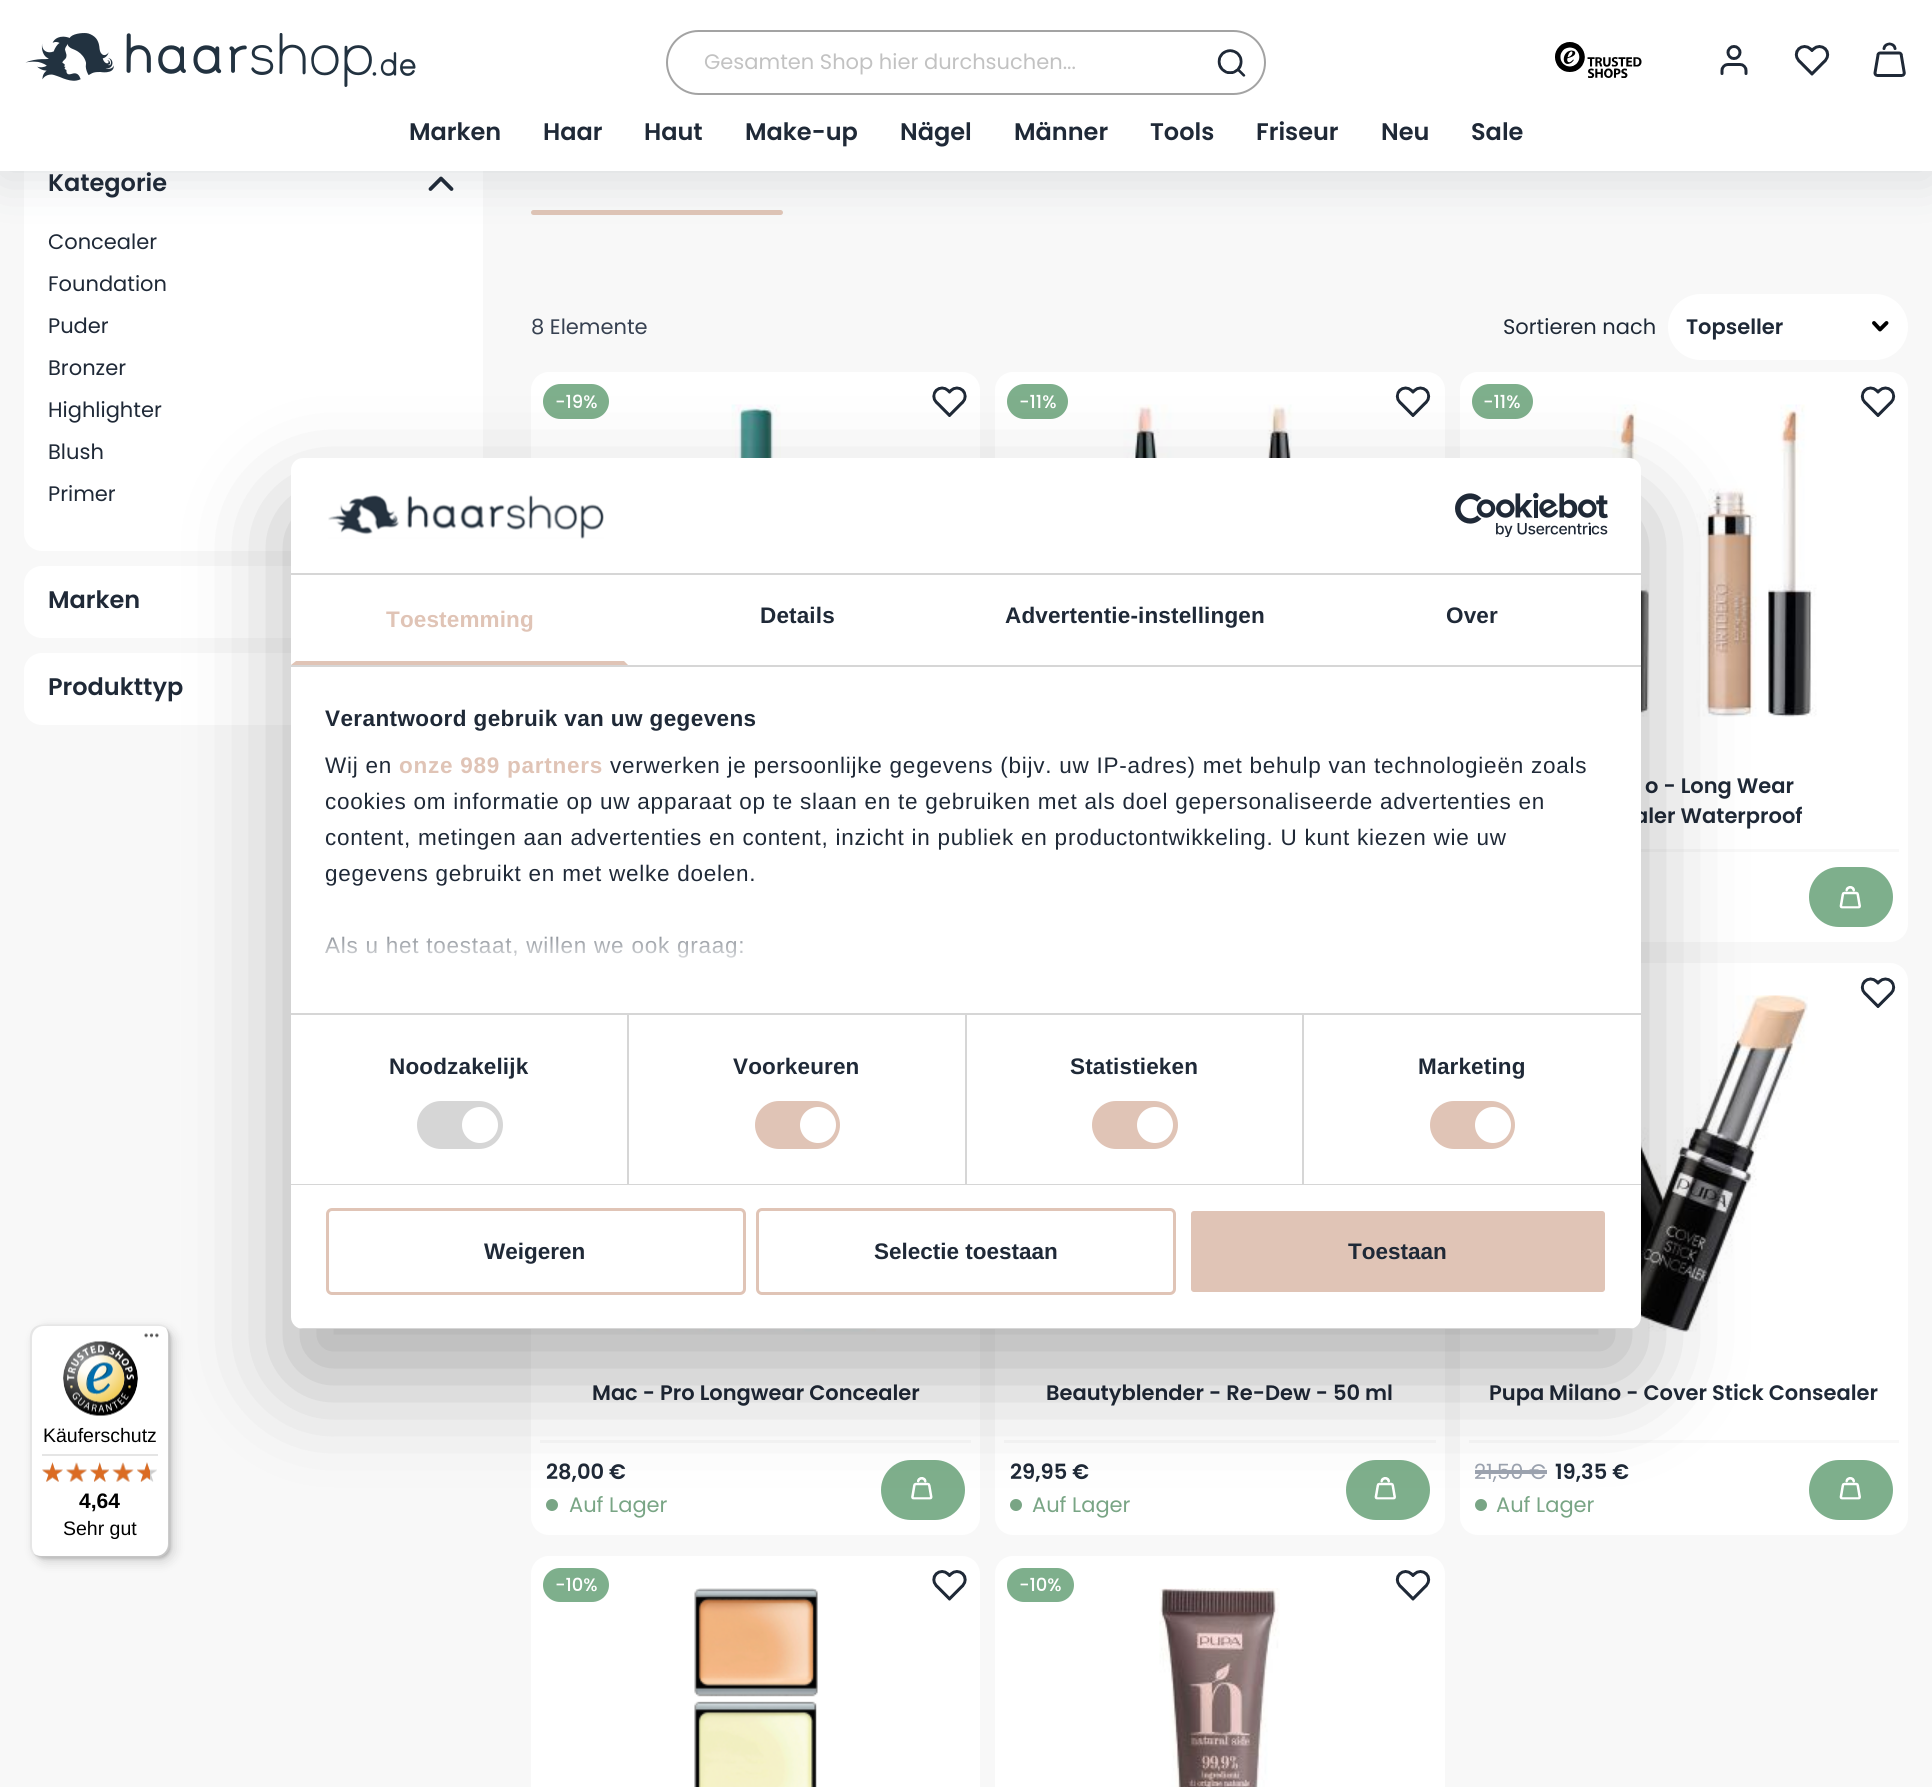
import math
import cairocffi as cairo

surface = cairo.ImageSurface(cairo.FORMAT_RGB24, 1932, 1787)
ctx = cairo.Context(surface)
options = cairo.FontOptions()
options.set_hint_metrics(cairo.HINT_METRICS_OFF)
options.set_hint_style(cairo.HINT_STYLE_NONE)
ctx.set_font_options(options)
ctx.set_miter_limit(4)


def rgb(r, g, b):
    ctx.set_source_rgb(r / 255, g / 255, b / 255)


def face(family, size, italic, bold):
    ctx.select_font_face(family, cairo.FONT_SLANT_ITALIC if italic else cairo.FONT_SLANT_NORMAL, cairo.FONT_WEIGHT_BOLD if bold else cairo.FONT_WEIGHT_NORMAL)
    ctx.set_font_size(size)


def label(x, y, s):
    ctx.move_to(x, y)
    ctx.show_text(s)


def tracked(x, y, s, letter, word):
    ctx.move_to(x, y)
    for ch in s:
        ctx.show_text(ch)
        ctx.rel_move_to(letter + word * (ch == ' '), 0)


def rect(x, y, w, h):
    ctx.rectangle(x, y, w, h)
    ctx.fill()


def rrect(x, y, w, h, r):
    ctx.new_sub_path()
    for i, (u, v) in enumerate([(x + w - r, y + h - r), (x + r, y + h - r), (x + r, y + r), (x + w - r, y + r)]):
        ctx.arc(u, v, r, i * math.pi / 2, (i + 1) * math.pi / 2)
    ctx.close_path()


def soft_shadow(x, y, w, h, r, blur, alpha):
    ctx.push_group_with_content(cairo.CONTENT_ALPHA)
    ctx.set_operator(cairo.OPERATOR_SOURCE)
    for i in range(15, -16, -2):
        e = blur * i / 6
        if min(w, h) + 2 * e > 0:
            ctx.set_source_rgba(0, 0, 0, alpha * math.erfc((i - 1) / 8.5) / 2)
            rrect(x - e, y - e, w + 2 * e, h + 2 * e, max(0, min(r + e + blur * .6, min(w, h) / 2 + e)))
            ctx.fill()
    ctx.mask(ctx.pop_group())


def image(path, x, y, w, h):
    ctx.save()
    ctx.set_source_surface(cairo.ImageSurface.create_from_png(path), x, y)
    ctx.rectangle(x, y, w, h)
    ctx.fill()
    ctx.restore()


rgb(248, 248, 248)
ctx.paint()
rgb(255, 255, 255)
rrect(24, 149, 459, 402, 18)
ctx.fill()
ctx.new_path()
ctx.move_to(430.5, 189)
ctx.line_to(441, 178.5)
ctx.line_to(451.5, 189)
rgb(31, 41, 55)
ctx.set_line_width(3.8)
ctx.set_line_cap(cairo.LINE_CAP_ROUND)
ctx.set_line_join(cairo.LINE_JOIN_ROUND)
ctx.stroke()
rgb(224, 196, 182)
rrect(531, 210, 252, 5, 2.5)
ctx.fill()
rgb(34, 50, 64)
soft_shadow(0, 6, 1932, 171, 0, 25.5, 0.15)
rgb(255, 255, 255)
rect(0, 0, 1932, 171)
image('image0.png', 25, 33, 391, 54)
rrect(667, 31, 598, 63, 31.5)
rgb(163, 163, 163)
ctx.set_line_width(2)
ctx.set_line_cap(cairo.LINE_CAP_BUTT)
ctx.set_line_join(cairo.LINE_JOIN_MITER)
ctx.stroke()
face('Poppins', 21, 0, 0)
rgb(194, 194, 194)
label(704, 69, 'Gesamten Shop hier durchsuchen...')
image('image1.png', 1217, 49, 29, 28)
image('image2.png', 1555, 42, 87, 36)
image('image3.png', 1720, 45, 28, 30)
image('image4.png', 1794, 45, 36, 31)
image('image5.png', 1873, 42, 33, 35)
face('Poppins SemiBold', 24, 0, 0)
rgb(31, 41, 55)
label(409, 140, 'Marken')
label(543, 140, 'Haar')
label(644, 140, 'Haut')
label(745, 140, 'Make-up')
label(900, 140, 'Nägel')
label(1014, 140, 'Männer')
label(1150, 140, 'Tools')
label(1256, 140, 'Friseur')
label(1381, 140, 'Neu')
label(1471, 140, 'Sale')
label(48, 191, 'Kategorie')
face('Poppins', 21, 0, 0)
label(48, 249, 'Concealer')
label(48, 291, 'Foundation')
label(48, 333, 'Puder')
label(48, 375, 'Bronzer')
label(48, 417, 'Highlighter')
label(48, 459, 'Blush')
label(48, 501, 'Primer')
rgb(255, 255, 255)
rrect(24, 566, 459, 72, 18)
ctx.fill()
face('Poppins SemiBold', 24, 0, 0)
rgb(31, 41, 55)
label(48, 608, 'Marken')
rgb(255, 255, 255)
rrect(24, 653, 459, 72, 18)
ctx.fill()
rgb(31, 41, 55)
label(48, 695, 'Produkttyp')
face('Poppins', 21, 0, 0)
rgb(55, 65, 81)
label(531, 334, '8 Elemente')
rgb(31, 41, 55)
label(1503, 334, 'Sortieren nach')
rgb(255, 255, 255)
rrect(1668, 294, 240, 66, 33)
ctx.fill()
ctx.new_path()
ctx.move_to(1874, 323)
ctx.line_to(1880, 329.5)
ctx.line_to(1886.5, 323)
rgb(0, 0, 0)
ctx.set_line_width(3.9)
ctx.set_line_cap(cairo.LINE_CAP_ROUND)
ctx.set_line_join(cairo.LINE_JOIN_ROUND)
ctx.stroke()
face('Poppins SemiBold', 21, 0, 0)
rgb(31, 41, 55)
label(1686, 334, 'Topseller')
rgb(255, 255, 255)
rrect(531, 372, 449, 570, 18)
ctx.fill()
rgb(126, 175, 140)
rrect(543, 384, 66, 35, 17.5)
ctx.fill()
face('Poppins Medium', 18, 0, 0)
rgb(255, 255, 255)
label(555, 408, '-19%')
image('image6.png', 932, 386, 35, 31)
image('image7.png', 731, 404, 50, 54)
rrect(995, 372, 450, 570, 18)
ctx.fill()
rgb(126, 175, 140)
rrect(1007, 384, 61, 35, 17.5)
ctx.fill()
rgb(255, 255, 255)
label(1019, 408, '-11%')
image('image8.png', 1395, 386, 36, 31)
image('image9.png', 1123, 404, 181, 54)
rrect(1460, 372, 448, 570, 18)
ctx.fill()
rgb(126, 175, 140)
rrect(1472, 384, 61, 35, 17.5)
ctx.fill()
rgb(255, 255, 255)
label(1483, 408, '-11%')
image('image8.png', 1860, 386, 36, 31)
image('image10.png', 1540, 404, 277, 313)
face('Poppins SemiBold', 21, 0, 0)
rgb(31, 41, 55)
label(1645, 793, 'o - Long Wear')
label(1634, 823, 'aler Waterproof')
rgb(248, 248, 248)
rect(1641, 849, 258, 3)
rgb(126, 175, 140)
rrect(1809, 867, 84, 60, 30)
ctx.fill()
image('image11.png', 1839, 886, 22, 23)
rgb(255, 255, 255)
rrect(531, 963, 449, 572, 18)
ctx.fill()
image('image12.png', 636, 1329, 240, 3)
rgb(31, 41, 55)
label(592, 1400, 'Mac - Pro Longwear Concealer')
rgb(248, 248, 248)
rect(540, 1440, 431, 3)
rgb(31, 41, 55)
label(546, 1479, '28,00 €')
rgb(121, 165, 133)
ctx.new_path()
ctx.arc(552, 1505, 6, 0, 2 * math.pi)
ctx.fill()
face('Poppins', 21, 0, 0)
label(569, 1512, 'Auf Lager')
rgb(126, 175, 140)
rrect(881, 1460, 84, 60, 30)
ctx.fill()
image('image13.png', 911, 1477, 22, 23)
rgb(255, 255, 255)
rrect(995, 963, 450, 572, 18)
ctx.fill()
face('Poppins SemiBold', 21, 0, 0)
rgb(31, 41, 55)
label(1046, 1400, 'Beautyblender - Re-Dew - 50 ml')
rgb(248, 248, 248)
rect(1004, 1440, 432, 3)
rgb(31, 41, 55)
label(1010, 1479, '29,95 €')
rgb(121, 165, 133)
ctx.new_path()
ctx.arc(1016, 1505, 6, 0, 2 * math.pi)
ctx.fill()
face('Poppins', 21, 0, 0)
label(1032, 1512, 'Auf Lager')
rgb(126, 175, 140)
rrect(1346, 1460, 84, 60, 30)
ctx.fill()
image('image11.png', 1374, 1477, 22, 23)
rgb(255, 255, 255)
rrect(1460, 963, 448, 572, 18)
ctx.fill()
image('image14.png', 1553, 995, 255, 337)
image('image8.png', 1860, 977, 36, 31)
face('Poppins SemiBold', 21, 0, 0)
rgb(31, 41, 55)
label(1489, 1400, 'Pupa Milano - Cover Stick Consealer')
rgb(248, 248, 248)
rect(1469, 1440, 430, 3)
face('Poppins', 21, 0, 0)
rgb(156, 163, 175)
label(1474, 1479, '21,50 €')
rect(1475, 1470, 72, 4)
face('Poppins SemiBold', 21, 0, 0)
rgb(31, 41, 55)
label(1555, 1479, '19,35 €')
rgb(121, 165, 133)
ctx.new_path()
ctx.arc(1481, 1505, 6, 0, 2 * math.pi)
ctx.fill()
face('Poppins', 21, 0, 0)
label(1496, 1512, 'Auf Lager')
rgb(126, 175, 140)
rrect(1809, 1460, 84, 60, 30)
ctx.fill()
image('image11.png', 1839, 1477, 22, 23)
rgb(255, 255, 255)
rrect(531, 1556, 449, 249, 18)
ctx.fill()
rgb(126, 175, 140)
rrect(543, 1568, 66, 34, 17)
ctx.fill()
face('Poppins Medium', 18, 0, 0)
rgb(255, 255, 255)
label(555, 1591, '-10%')
image('image15.png', 932, 1570, 35, 31)
image('image16.png', 694, 1588, 124, 199)
rrect(995, 1556, 450, 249, 18)
ctx.fill()
rgb(126, 175, 140)
rrect(1007, 1568, 67, 34, 17)
ctx.fill()
rgb(255, 255, 255)
label(1019, 1591, '-10%')
image('image17.png', 1395, 1570, 36, 31)
image('image18.png', 1159, 1588, 121, 199)
rgb(0, 0, 0)
soft_shadow(291, 506, 1350, 871, 12, 51, 0.3)
rgb(255, 255, 255)
rrect(291, 458, 1350, 871, 12)
ctx.fill()
rgb(214, 214, 214)
rect(291, 573, 1350, 2)
image('image19.png', 328, 495, 276, 44)
image('image20.png', 1455, 492, 153, 45)
rect(291, 665, 1350, 2)
rgb(224, 196, 182)
ctx.new_path()
ctx.move_to(628, 665)
ctx.line_to(291, 665)
ctx.line_to(296, 661)
ctx.line_to(624, 661)
ctx.close_path()
ctx.fill()
face('Liberation Sans', 22.5, 0, 1)
tracked(386, 627, 'Toestemming', 0.15, 0)
rgb(31, 41, 55)
tracked(760, 623, 'Details', 0.15, 0)
tracked(1005, 623, 'Advertentie-instellingen', 0.15, 0)
tracked(1446, 623, 'Over', 0.15, 0)
rgb(214, 214, 214)
rect(627, 1014, 2, 170)
rect(965, 1014, 2, 170)
rect(1302, 1014, 2, 170)
rect(291, 1013, 1350, 2)
rgb(31, 41, 55)
tracked(325, 726, 'Verantwoord gebruik van uw gegevens', 0.4, 0)
face('Liberation Sans', 22.5, 0, 0)
tracked(325, 773, 'Wij en', 0.75, 0)
face('Liberation Sans', 22.5, 0, 1)
rgb(224, 196, 182)
tracked(399, 773, 'onze 989 partners', 0.75, 0)
face('Liberation Sans', 22.5, 0, 0)
rgb(31, 41, 55)
tracked(610, 773, 'verwerken je persoonlijke gegevens (bijv. uw IP-adres) met behulp van technologieën zoals', 0.75, 0)
tracked(325, 809, 'cookies om informatie op uw apparaat op te slaan en te gebruiken met als doel gepersonaliseerde advertenties en', 0.75, 0)
tracked(325, 845, 'content, metingen aan advertenties en content, inzicht in publiek en productontwikkeling. U kunt kiezen wie uw', 0.75, 0)
tracked(325, 881, 'gegevens gebruikt en met welke doelen.', 0.75, 0)
tracked(325, 953, 'Als u het toestaat, willen we ook graag:', 0.75, 0)
gradient = cairo.LinearGradient(951, 1013, 951, 901)
gradient.add_color_stop_rgba(0, 1, 1, 1, 1)
gradient.add_color_stop_rgba(0.5, 1, 1, 1, 0.8)
gradient.add_color_stop_rgba(1, 1, 1, 1, 0)
ctx.set_source(gradient)
rect(324, 936, 419, 22)
rgb(214, 214, 214)
rect(291, 1184, 1350, 1)
face('Liberation Sans', 22.5, 0, 1)
rgb(31, 41, 55)
tracked(389, 1074, 'Noodzakelijk', 0.15, 0)
rgb(214, 214, 214)
rrect(417, 1101, 86, 48, 24)
ctx.fill()
rgb(255, 255, 255)
ctx.arc(480, 1125, 18, 0, 2 * math.pi)
ctx.fill()
rgb(31, 41, 55)
tracked(733, 1074, 'Voorkeuren', 0.15, 0)
rgb(224, 196, 182)
rrect(755, 1101, 85, 48, 24)
ctx.fill()
rgb(255, 255, 255)
ctx.arc(818, 1125, 18, 0, 2 * math.pi)
ctx.fill()
rgb(31, 41, 55)
tracked(1070, 1074, 'Statistieken', 0.15, 0)
rgb(224, 196, 182)
rrect(1092, 1101, 86, 48, 24)
ctx.fill()
rgb(255, 255, 255)
ctx.arc(1155, 1125, 18, 0, 2 * math.pi)
ctx.fill()
rgb(31, 41, 55)
tracked(1418, 1074, 'Marketing', 0.15, 0)
rgb(224, 196, 182)
rrect(1430, 1101, 85, 48, 24)
ctx.fill()
rgb(255, 255, 255)
ctx.arc(1493, 1125, 18, 0, 2 * math.pi)
ctx.fill()
ctx.save()
rrect(291, 458, 1350, 871, 12)
ctx.clip()
rgb(214, 214, 214)
rect(291, 1328, 1350, 1)
ctx.restore()
rrect(327.5, 1209.5, 417, 84, 4.5)
rgb(224, 196, 182)
ctx.set_line_width(3)
ctx.set_line_cap(cairo.LINE_CAP_BUTT)
ctx.set_line_join(cairo.LINE_JOIN_MITER)
ctx.stroke()
rgb(31, 41, 55)
label(484, 1259, 'Weigeren')
rrect(757.5, 1209.5, 417, 84, 4.5)
rgb(224, 196, 182)
ctx.stroke()
rgb(31, 41, 55)
label(874, 1259, 'Selectie toestaan')
rgb(224, 196, 182)
rrect(1189.5, 1209.5, 417, 84, 4.5)
ctx.fill_preserve()
rgb(255, 255, 255)
ctx.stroke()
rgb(31, 41, 55)
label(1348, 1259, 'Toestaan')
rgb(0, 0, 0)
soft_shadow(35, 1329, 139, 233, 12, 6, 0.15)
soft_shadow(32, 1326, 139, 233, 12, 1.5, 0.15)
rgb(255, 255, 255)
rrect(30, 1325, 140, 232, 12)
ctx.fill()
ctx.set_source_rgba(0, 0, 0, 0.1)
ctx.new_path()
ctx.move_to(44, 1326)
ctx.line_to(159, 1326)
ctx.curve_to(162, 1326, 164, 1327, 166, 1328)
ctx.curve_to(164, 1326, 161, 1325, 158, 1325)
ctx.line_to(42, 1325)
ctx.curve_to(35, 1325, 30, 1330, 30, 1337)
ctx.line_to(30, 1545)
ctx.curve_to(30, 1550, 33, 1554, 37, 1556)
ctx.curve_to(34, 1554, 32, 1550, 32, 1546)
ctx.line_to(32, 1338)
ctx.curve_to(32, 1331, 37, 1326, 44, 1326)
ctx.close_path()
ctx.fill()
ctx.set_source_rgba(0, 0, 0, 0.2)
ctx.new_path()
ctx.move_to(35, 1554)
ctx.curve_to(37, 1556, 39, 1557, 42, 1557)
ctx.line_to(158, 1557)
ctx.curve_to(165, 1557, 170, 1552, 170, 1545)
ctx.line_to(170, 1337)
ctx.curve_to(170, 1333, 168, 1330, 166, 1328)
ctx.curve_to(167, 1330, 168, 1332, 168, 1335)
ctx.line_to(168, 1544)
ctx.curve_to(168, 1550, 163, 1556, 156, 1556)
ctx.line_to(40, 1556)
ctx.curve_to(38, 1556, 36, 1555, 35, 1554)
ctx.close_path()
ctx.fill()
ctx.set_source_rgba(0.196, 0.196, 0.196, 0.2)
ctx.new_path()
ctx.move_to(34, 1554)
ctx.curve_to(36, 1556, 39, 1557, 42, 1557)
ctx.line_to(158, 1557)
ctx.curve_to(165, 1557, 170, 1552, 170, 1545)
ctx.line_to(170, 1337)
ctx.curve_to(170, 1333, 168, 1330, 166, 1328)
ctx.curve_to(168, 1330, 169, 1333, 169, 1336)
ctx.line_to(169, 1544)
ctx.curve_to(169, 1551, 163, 1556, 157, 1556)
ctx.line_to(41, 1556)
ctx.curve_to(38, 1556, 36, 1555, 34, 1554)
ctx.close_path()
ctx.fill()
ctx.set_source_rgba(1, 1, 1, 0.3)
ctx.new_path()
ctx.move_to(33, 1553)
ctx.curve_to(35, 1555, 38, 1557, 42, 1557)
ctx.line_to(158, 1557)
ctx.curve_to(165, 1557, 170, 1552, 170, 1545)
ctx.line_to(170, 1337)
ctx.curve_to(170, 1333, 168, 1330, 166, 1328)
ctx.curve_to(168, 1330, 169, 1333, 169, 1336)
ctx.line_to(169, 1544)
ctx.curve_to(169, 1551, 163, 1556, 157, 1556)
ctx.line_to(41, 1556)
ctx.curve_to(38, 1556, 35, 1555, 33, 1553)
ctx.close_path()
ctx.fill()
image('image21.png', 144, 1333, 15, 5)
image('image22.png', 63, 1341, 75, 75)
face('Liberation Sans', 19.5, 0, 0)
rgb(0, 0, 0)
label(43, 1442, 'Käuferschutz')
rgb(229, 229, 229)
rect(42, 1454, 116, 2)
image('image23.png', 42, 1462, 21, 20)
image('image24.png', 66, 1463, 21, 19)
image('image25.png', 90, 1462, 19, 20)
image('image26.png', 113, 1463, 20, 19)
image('image27.png', 137, 1462, 20, 20)
image('image28.png', 42, 1462, 21, 20)
image('image29.png', 66, 1462, 21, 20)
image('image30.png', 90, 1462, 19, 20)
image('image31.png', 112, 1462, 22, 20)
image('image32.png', 137, 1462, 13, 20)
face('Liberation Sans', 21, 0, 1)
rgb(0, 0, 0)
label(79, 1508, '4,64')
face('Liberation Sans', 19.5, 0, 0)
label(63, 1535, 'Sehr gut')
surface.write_to_png('render.png')
